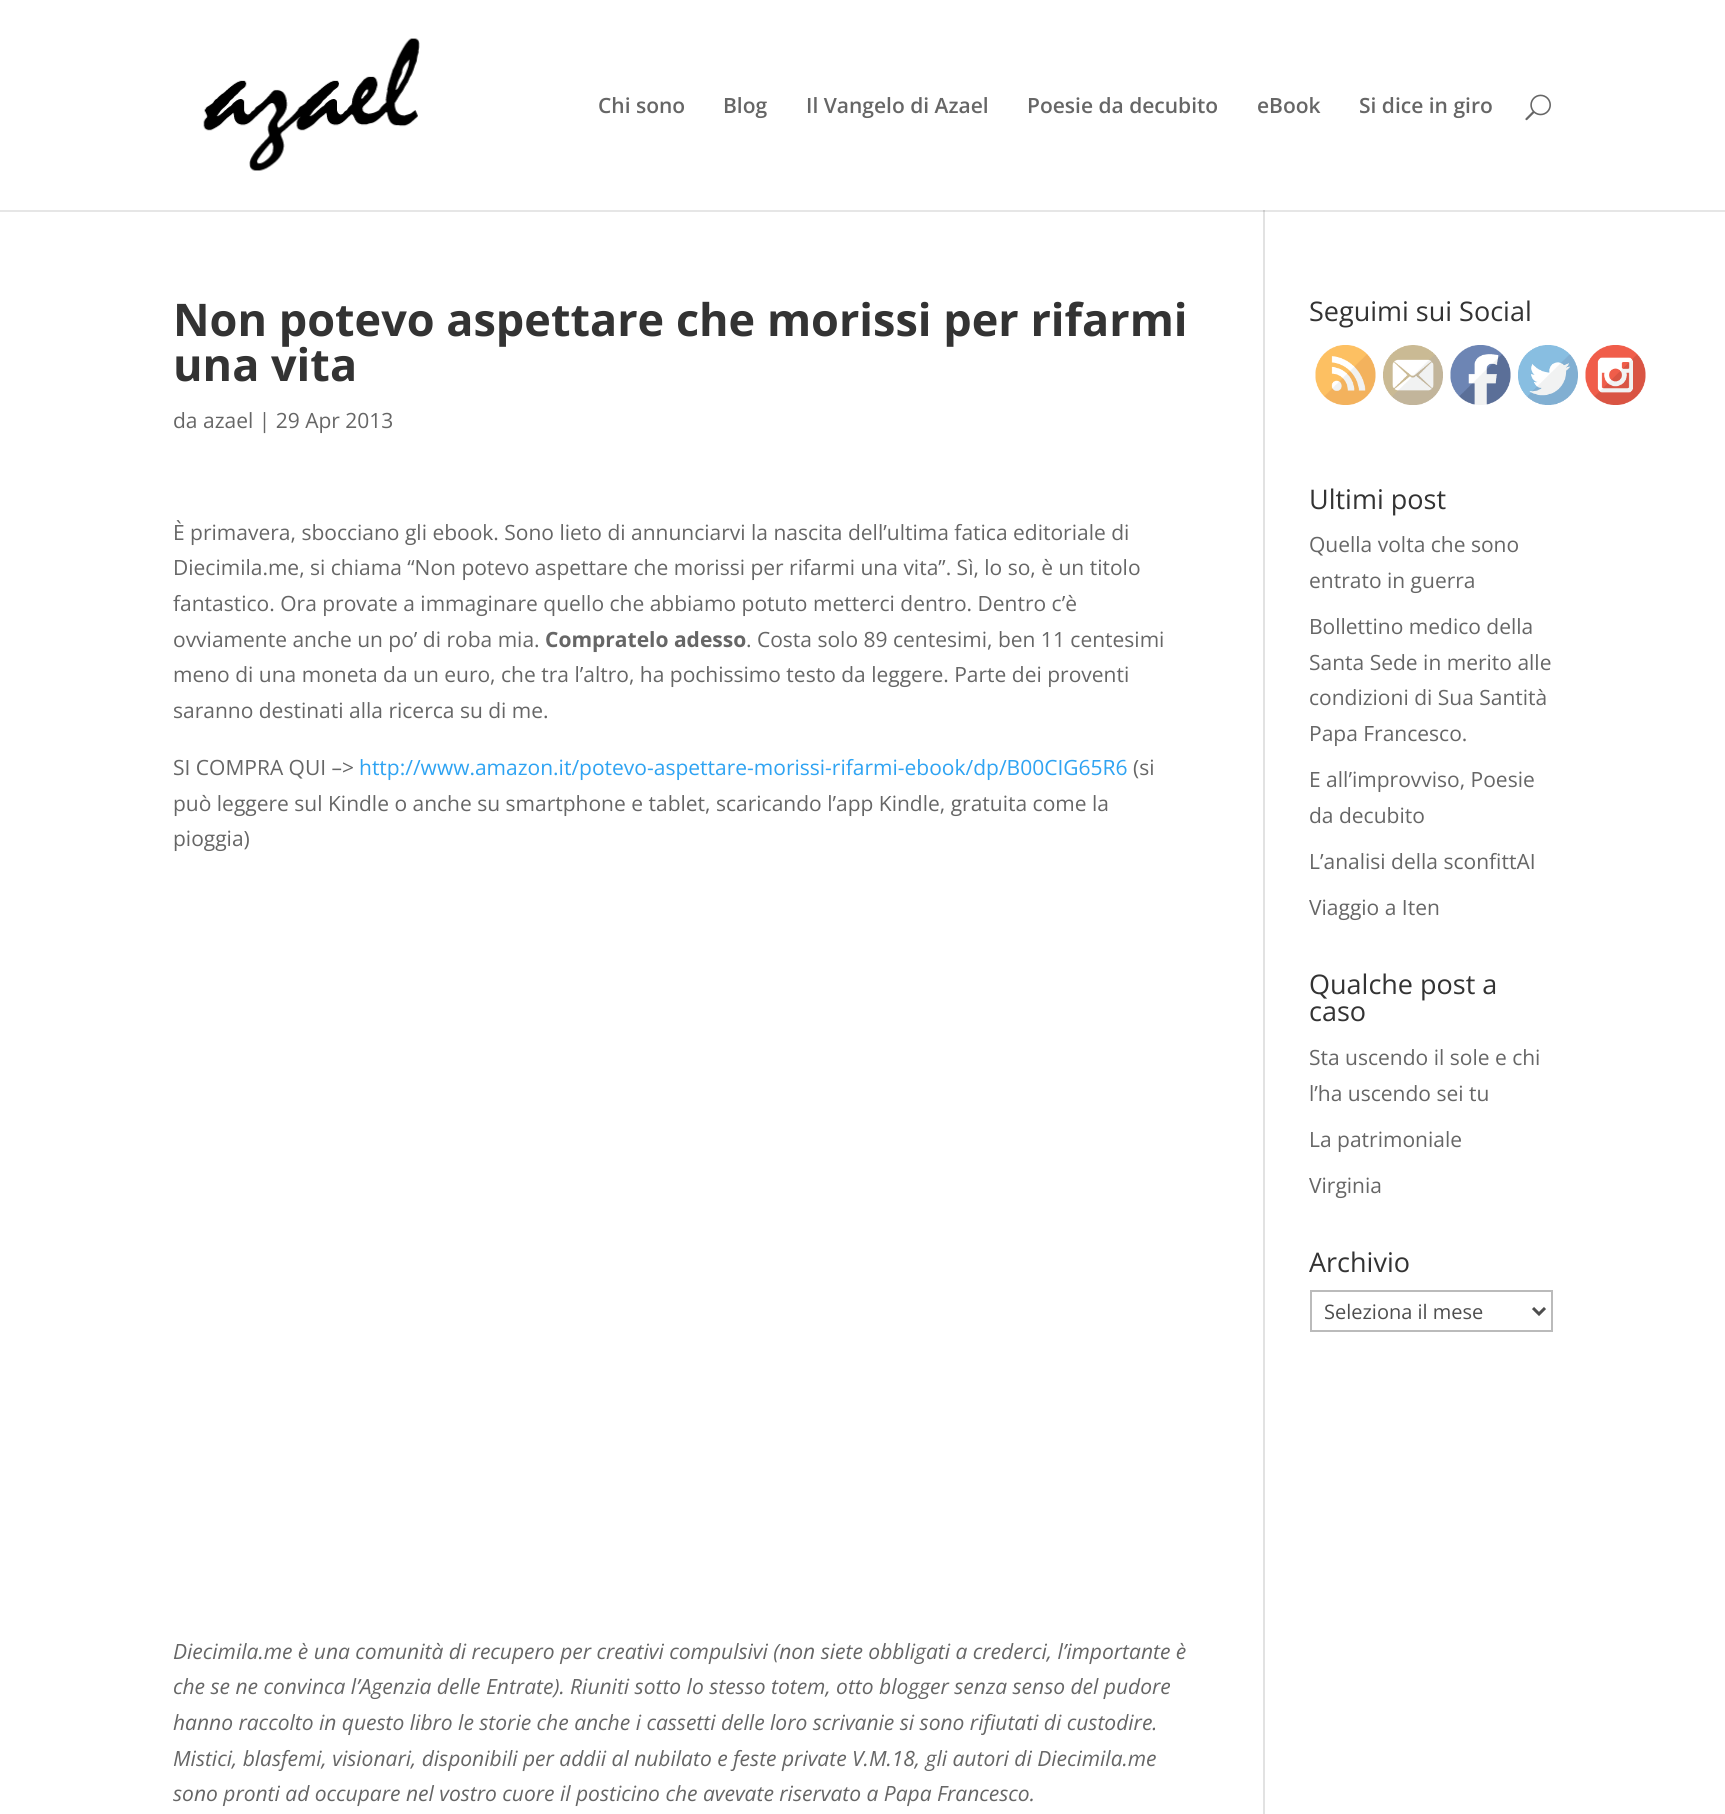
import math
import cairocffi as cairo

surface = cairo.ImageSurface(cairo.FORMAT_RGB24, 1725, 1814)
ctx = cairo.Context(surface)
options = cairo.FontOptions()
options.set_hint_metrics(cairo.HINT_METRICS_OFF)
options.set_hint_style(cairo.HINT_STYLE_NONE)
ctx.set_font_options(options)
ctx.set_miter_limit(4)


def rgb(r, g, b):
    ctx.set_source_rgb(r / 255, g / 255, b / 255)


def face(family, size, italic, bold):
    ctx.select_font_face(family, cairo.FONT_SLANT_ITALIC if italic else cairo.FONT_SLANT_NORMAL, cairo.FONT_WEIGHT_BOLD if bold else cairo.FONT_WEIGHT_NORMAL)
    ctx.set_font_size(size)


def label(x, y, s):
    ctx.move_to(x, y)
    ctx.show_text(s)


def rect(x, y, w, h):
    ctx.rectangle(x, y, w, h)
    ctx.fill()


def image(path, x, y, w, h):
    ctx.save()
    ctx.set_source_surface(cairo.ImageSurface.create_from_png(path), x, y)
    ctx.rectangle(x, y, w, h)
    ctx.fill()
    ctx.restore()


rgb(255, 255, 255)
ctx.paint()
rgb(230, 230, 230)
rect(0, 210, 1725, 2)
image('image0.png', 203, 38, 217, 133)
face('Open Sans SemiBold', 21, 0, 0)
rgb(102, 102, 102)
label(598, 113, 'Chi sono')
label(723, 113, 'Blog')
label(806, 113, 'Il Vangelo di Azael')
label(1027, 113, 'Poesie da decubito')
label(1257, 113, 'eBook')
label(1359, 113, 'Si dice in giro')
image('image1.png', 1525, 94, 26, 27)
rgb(226, 226, 226)
rect(1263, 210, 2, 1604)
rgb(203, 203, 203)
rect(1263, 210, 2, 2)
face('Open Sans', 45, 0, 1)
rgb(51, 51, 51)
label(173, 336, 'Non potevo aspettare che morissi per rifarmi')
label(173, 381, 'una vita')
face('Open Sans', 21, 0, 0)
rgb(102, 102, 102)
label(173, 428, 'da azael | 29 Apr 2013')
label(173, 540, 'È primavera, sbocciano gli ebook. Sono lieto di annunciarvi la nascita dell’ultima fatica editoriale di')
label(173, 575, 'Diecimila.me, si chiama “Non potevo aspettare che morissi per rifarmi una vita”. Sì, lo so, è un titolo')
label(173, 611, 'fantastico. Ora provate a immaginare quello che abbiamo potuto metterci dentro. Dentro c’è')
label(173, 647, 'ovviamente anche un po’ di roba mia.')
face('Open Sans', 21, 0, 1)
label(545, 647, 'Compratelo adesso')
face('Open Sans', 21, 0, 0)
label(746, 647, '. Costa solo 89 centesimi, ben 11 centesimi')
label(173, 682, 'meno di una moneta da un euro, che tra l’altro, ha pochissimo testo da leggere. Parte dei proventi')
label(173, 718, 'saranno destinati alla ricerca su di me.')
label(173, 775, 'SI COMPRA QUI –>')
rgb(46, 163, 242)
label(359, 775, 'http://www.amazon.it/potevo-aspettare-morissi-rifarmi-ebook/dp/B00CIG65R6')
rgb(102, 102, 102)
label(1133, 775, '(si')
label(173, 811, 'può leggere sul Kindle o anche su smartphone e tablet, scaricando l’app Kindle, gratuita come la')
label(173, 846, 'pioggia)')
face('Open Sans', 21, 1, 0)
label(173, 1659, 'Diecimila.me è una comunità di recupero per creativi compulsivi (non siete obbligati a crederci, l’importante è')
label(173, 1694, 'che se ne convinca l’Agenzia delle Entrate). Riuniti sotto lo stesso totem, otto blogger senza senso del pudore')
label(173, 1730, 'hanno raccolto in questo libro le storie che anche i cassetti delle loro scrivanie si sono rifiutati di custodire.')
label(173, 1766, 'Mistici, blasfemi, visionari, disponibili per addii al nubilato e feste private V.M.18, gli autori di Diecimila.me')
label(173, 1801, 'sono pronti ad occupare nel vostro cuore il posticino che avevate riservato a Papa Francesco.')
face('Open Sans', 27, 0, 0)
rgb(51, 51, 51)
label(1309, 321, 'Seguimi sui Social')
image('image2.png', 1315, 345, 61, 60)
image('image3.png', 1383, 345, 60, 60)
image('image4.png', 1450, 345, 61, 60)
image('image5.png', 1518, 345, 60, 60)
image('image6.png', 1585, 345, 61, 60)
label(1309, 509, 'Ultimi post')
face('Open Sans', 21, 0, 0)
rgb(102, 102, 102)
label(1309, 552, 'Quella volta che sono')
label(1309, 588, 'entrato in guerra')
label(1309, 634, 'Bollettino medico della')
label(1309, 670, 'Santa Sede in merito alle')
label(1309, 705, 'condizioni di Sua Santità')
label(1309, 741, 'Papa Francesco.')
label(1309, 787, 'E all’improvviso, Poesie')
label(1309, 823, 'da decubito')
label(1309, 869, 'L’analisi della sconfittAI')
label(1309, 915, 'Viaggio a Iten')
face('Open Sans', 27, 0, 0)
rgb(51, 51, 51)
label(1309, 994, 'Qualche post a')
label(1309, 1021, 'caso')
face('Open Sans', 21, 0, 0)
rgb(102, 102, 102)
label(1309, 1065, 'Sta uscendo il sole e chi')
label(1309, 1101, 'l’ha uscendo sei tu')
label(1309, 1147, 'La patrimoniale')
label(1309, 1193, 'Virginia')
face('Open Sans', 27, 0, 0)
rgb(51, 51, 51)
label(1309, 1272, 'Archivio')
ctx.rectangle(1311, 1291, 241, 40)
rgb(187, 187, 187)
ctx.stroke()
ctx.new_path()
ctx.move_to(1533, 1308)
ctx.line_to(1539, 1314)
ctx.line_to(1545, 1308)
rgb(78, 78, 78)
ctx.set_line_width(3)
ctx.stroke()
face('Open Sans', 20, 0, 0)
label(1324, 1319, 'Seleziona il mese')
surface.write_to_png('render.png')
